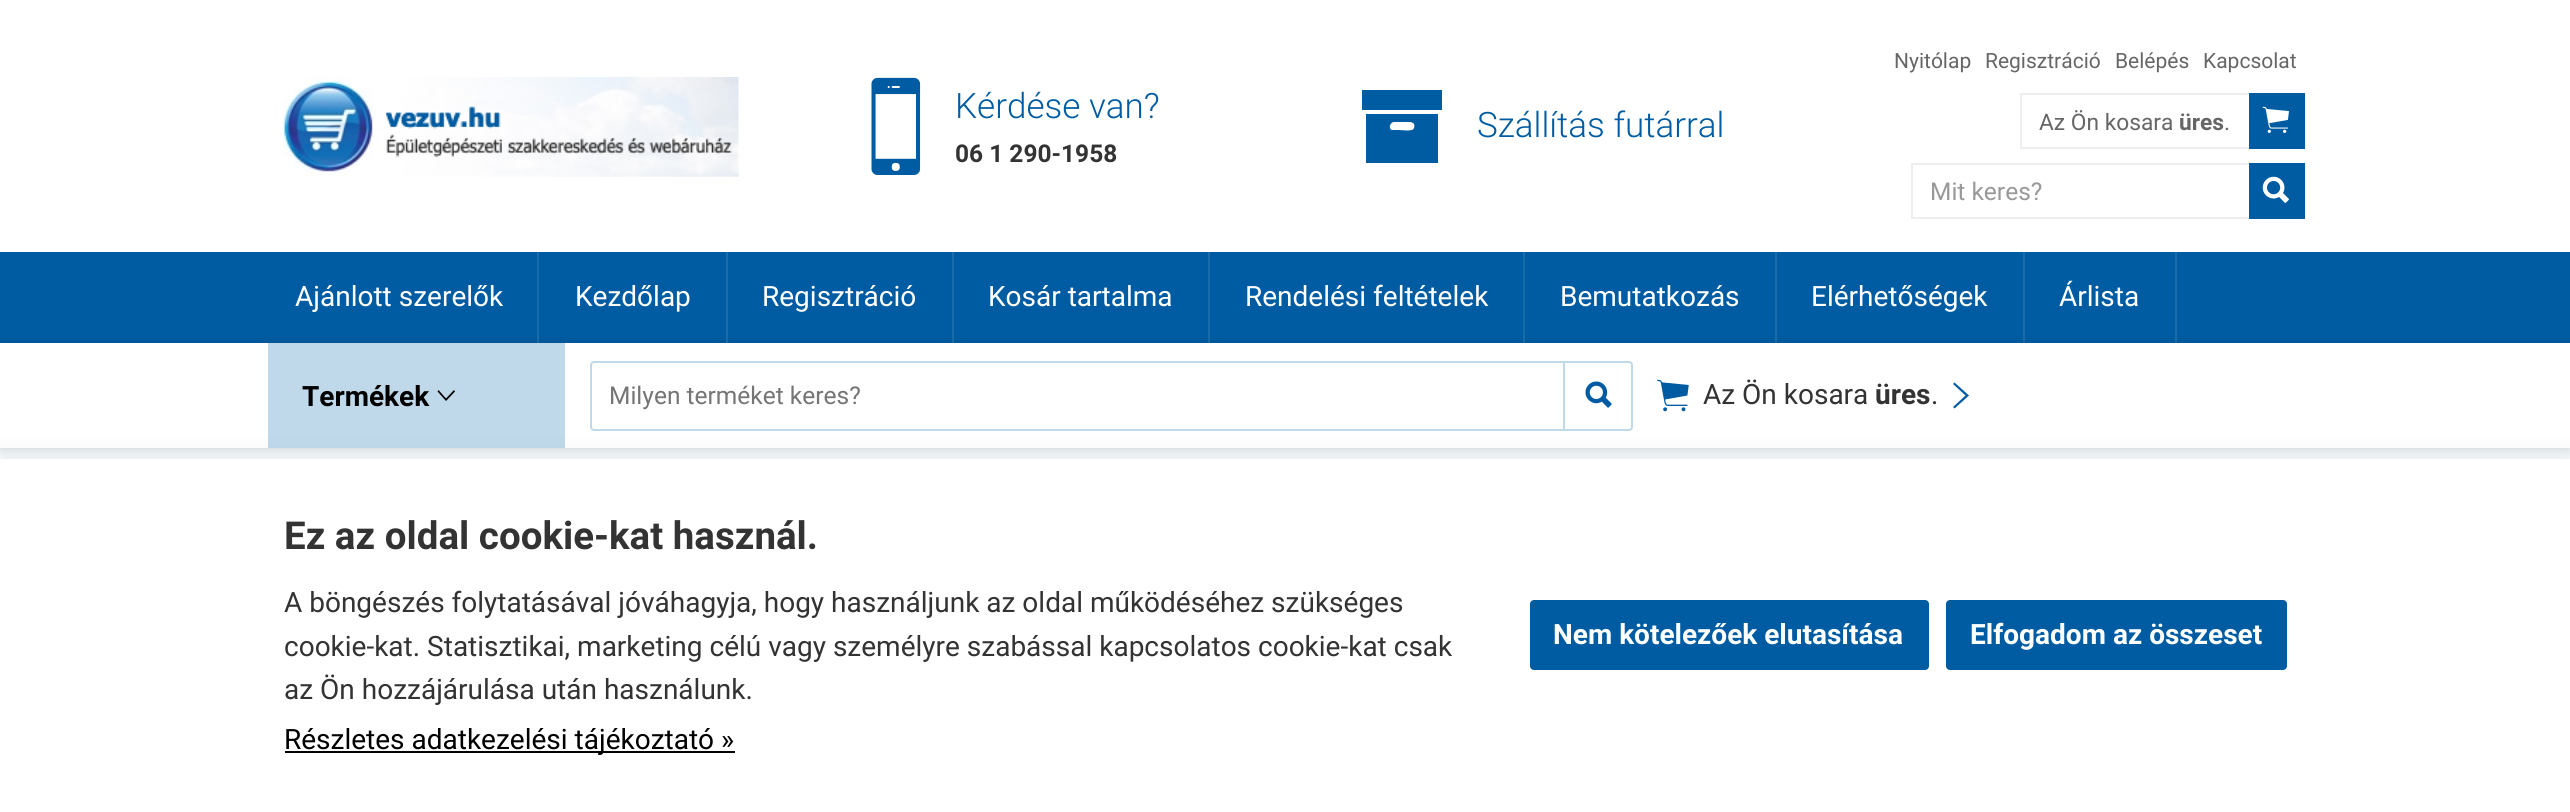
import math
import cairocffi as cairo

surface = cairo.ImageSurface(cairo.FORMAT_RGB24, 2570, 812)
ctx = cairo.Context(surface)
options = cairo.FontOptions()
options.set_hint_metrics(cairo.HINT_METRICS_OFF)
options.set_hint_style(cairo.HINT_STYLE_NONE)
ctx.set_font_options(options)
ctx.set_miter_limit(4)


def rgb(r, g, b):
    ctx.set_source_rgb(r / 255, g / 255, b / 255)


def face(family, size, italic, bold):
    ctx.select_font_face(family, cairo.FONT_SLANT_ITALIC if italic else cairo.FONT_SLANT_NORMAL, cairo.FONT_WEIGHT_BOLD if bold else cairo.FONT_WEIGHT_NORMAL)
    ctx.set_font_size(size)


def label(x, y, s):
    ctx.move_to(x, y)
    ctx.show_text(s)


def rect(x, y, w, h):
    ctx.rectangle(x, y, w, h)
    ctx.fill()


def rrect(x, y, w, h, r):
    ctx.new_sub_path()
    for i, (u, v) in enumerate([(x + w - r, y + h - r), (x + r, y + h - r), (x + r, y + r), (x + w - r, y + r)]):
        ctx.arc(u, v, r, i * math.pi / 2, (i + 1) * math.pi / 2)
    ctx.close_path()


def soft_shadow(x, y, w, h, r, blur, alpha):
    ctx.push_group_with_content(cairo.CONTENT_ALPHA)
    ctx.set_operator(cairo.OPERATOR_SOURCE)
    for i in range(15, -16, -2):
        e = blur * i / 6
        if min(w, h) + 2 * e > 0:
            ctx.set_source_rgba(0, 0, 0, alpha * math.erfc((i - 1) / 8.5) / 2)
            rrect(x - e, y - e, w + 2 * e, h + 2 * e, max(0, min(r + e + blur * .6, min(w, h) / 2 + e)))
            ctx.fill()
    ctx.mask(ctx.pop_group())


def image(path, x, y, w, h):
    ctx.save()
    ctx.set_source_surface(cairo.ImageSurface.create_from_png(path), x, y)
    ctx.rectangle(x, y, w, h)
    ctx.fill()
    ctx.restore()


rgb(245, 250, 253)
ctx.paint()
rgb(255, 255, 255)
rect(0, 0, 2570, 252)
image('image0.png', 283, 77, 456, 100)
image('image1.png', 871, 77, 50, 98)
face('Roboto Light', 35, 0, 0)
rgb(0, 92, 162)
label(955, 118, 'Kérdése van?')
face('Roboto', 24.5, 0, 1)
rgb(51, 51, 51)
label(955, 162, '06 1 290-1958')
rgb(0, 92, 162)
ctx.new_path()
ctx.move_to(1366, 163)
ctx.line_to(1366, 114)
ctx.line_to(1438, 114)
ctx.line_to(1438, 163)
ctx.close_path()
ctx.move_to(1394, 122)
ctx.curve_to(1390, 122, 1388, 129, 1392, 130)
ctx.line_to(1399, 130)
ctx.curve_to(1402, 130, 1413, 132, 1414, 128)
ctx.curve_to(1416, 121, 1409, 122, 1405, 122)
ctx.close_path()
ctx.move_to(1362, 90)
ctx.line_to(1442, 90)
ctx.line_to(1442, 110)
ctx.line_to(1362, 110)
ctx.close_path()
ctx.fill()
face('Roboto Light', 35, 0, 0)
label(1477, 137, 'Szállítás futárral')
face('Roboto', 21, 0, 0)
rgb(102, 102, 102)
label(1894, 68, 'Nyitólap')
label(1985, 68, 'Regisztráció')
label(2115, 68, 'Belépés')
label(2203, 68, 'Kapcsolat')
rgb(238, 238, 238)
rect(2020, 93, 229, 2)
rect(2020, 147, 229, 2)
rect(2020, 93, 2, 56)
face('Roboto', 22.75, 0, 0)
rgb(102, 102, 102)
label(2039, 130, 'Az Ön kosara')
face('Roboto', 22.75, 0, 1)
label(2179, 130, 'üres')
face('Roboto', 22.75, 0, 0)
label(2224, 130, '.')
rgb(0, 92, 162)
rect(2249, 93, 56, 56)
image('image2.png', 2262, 106, 27, 27)
rgb(238, 238, 238)
rect(1911, 163, 338, 2)
rect(1911, 217, 338, 2)
rect(1911, 163, 2, 56)
face('Roboto', 24.5, 0, 0)
rgb(153, 153, 153)
label(1930, 200, 'Mit keres?')
rgb(0, 92, 162)
rect(2249, 163, 56, 56)
image('image3.png', 2262, 176, 27, 27)
rect(0, 252, 2570, 91)
rgb(0, 0, 0)
soft_shadow(0, 343, 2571, 105, 0, 4.5, 0.15)
ctx.set_source_rgba(1, 1, 1, 0.1)
rect(537, 252, 2, 91)
face('Roboto', 28, 0, 0)
rgb(255, 255, 255)
label(295, 306, 'Ajánlott szerelők')
ctx.set_source_rgba(1, 1, 1, 0.1)
rect(726, 252, 2, 91)
rgb(255, 255, 255)
label(575, 306, 'Kezdőlap')
ctx.set_source_rgba(1, 1, 1, 0.1)
rect(952, 252, 2, 91)
rgb(255, 255, 255)
label(762, 306, 'Regisztráció')
ctx.set_source_rgba(1, 1, 1, 0.1)
rect(1208, 252, 2, 91)
rgb(255, 255, 255)
label(988, 306, 'Kosár tartalma')
ctx.set_source_rgba(1, 1, 1, 0.1)
rect(1523, 252, 2, 91)
rgb(255, 255, 255)
label(1245, 306, 'Rendelési feltételek')
ctx.set_source_rgba(1, 1, 1, 0.1)
rect(1775, 252, 2, 91)
rgb(255, 255, 255)
label(1560, 306, 'Bemutatkozás')
ctx.set_source_rgba(1, 1, 1, 0.1)
rect(2023, 252, 2, 91)
rgb(255, 255, 255)
label(1811, 306, 'Elérhetőségek')
ctx.set_source_rgba(1, 1, 1, 0.1)
rect(2175, 252, 2, 91)
rgb(255, 255, 255)
label(2059, 306, 'Árlista')
rect(0, 343, 2570, 105)
rgb(191, 217, 235)
rect(268, 343, 297, 105)
face('Roboto', 28, 0, 1)
rgb(0, 0, 0)
label(302, 406, 'Termékek')
ctx.new_path()
ctx.move_to(454, 390)
ctx.line_to(455, 391.5)
ctx.line_to(446, 401)
ctx.line_to(437.5, 391.5)
ctx.line_to(438.5, 390)
ctx.line_to(446, 398.5)
ctx.close_path()
ctx.fill()
rrect(591, 362, 1041, 68, 3)
rgb(191, 217, 235)
ctx.stroke()
face('Roboto', 24.5, 0, 0)
rgb(117, 117, 117)
label(609, 404, 'Milyen terméket keres?')
rgb(191, 217, 235)
rect(1563, 361, 2, 70)
image('image4.png', 1585, 381, 27, 27)
image('image5.png', 1657, 379, 32, 33)
face('Roboto', 28, 0, 0)
rgb(51, 51, 51)
label(1703, 404, 'Az Ön kosara')
face('Roboto', 28, 0, 1)
label(1875, 404, 'üres')
face('Roboto', 28, 0, 0)
label(1931, 404, '.')
rgb(0, 92, 162)
ctx.new_path()
ctx.move_to(1953, 384)
ctx.line_to(1954.5, 382.5)
ctx.line_to(1969, 395.5)
ctx.line_to(1954.5, 408.5)
ctx.line_to(1953, 407)
ctx.line_to(1965.5, 395.5)
ctx.close_path()
ctx.fill()
rgb(0, 0, 0)
soft_shadow(0, 450, 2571, 353, 0, 9, 0.05)
rgb(255, 255, 255)
rect(0, 459, 2570, 353)
face('Roboto', 38.5, 0, 1)
rgb(51, 51, 51)
label(284, 549, 'Ez az oldal cookie-kat használ.')
face('Roboto', 28, 0, 0)
label(284, 612, 'A böngészés folytatásával jóváhagyja, hogy használjunk az oldal működéséhez szükséges')
label(284, 656, 'cookie-kat. Statisztikai, marketing célú vagy személyre szabással kapcsolatos cookie-kat csak')
label(284, 699, 'az Ön hozzájárulása után használunk.')
rgb(0, 0, 0)
rect(285, 751, 450, 2)
label(284, 749, 'Részletes adatkezelési tájékoztató »')
rgb(0, 92, 162)
rrect(1530, 600, 399, 70, 4)
ctx.fill()
face('Roboto', 28, 0, 1)
rgb(255, 255, 255)
label(1553, 644, 'Nem kötelezőek elutasítása')
rgb(0, 92, 162)
rrect(1946, 600, 341, 70, 4)
ctx.fill()
rgb(255, 255, 255)
label(1970, 644, 'Elfogadom az összeset')
surface.write_to_png('render.png')
